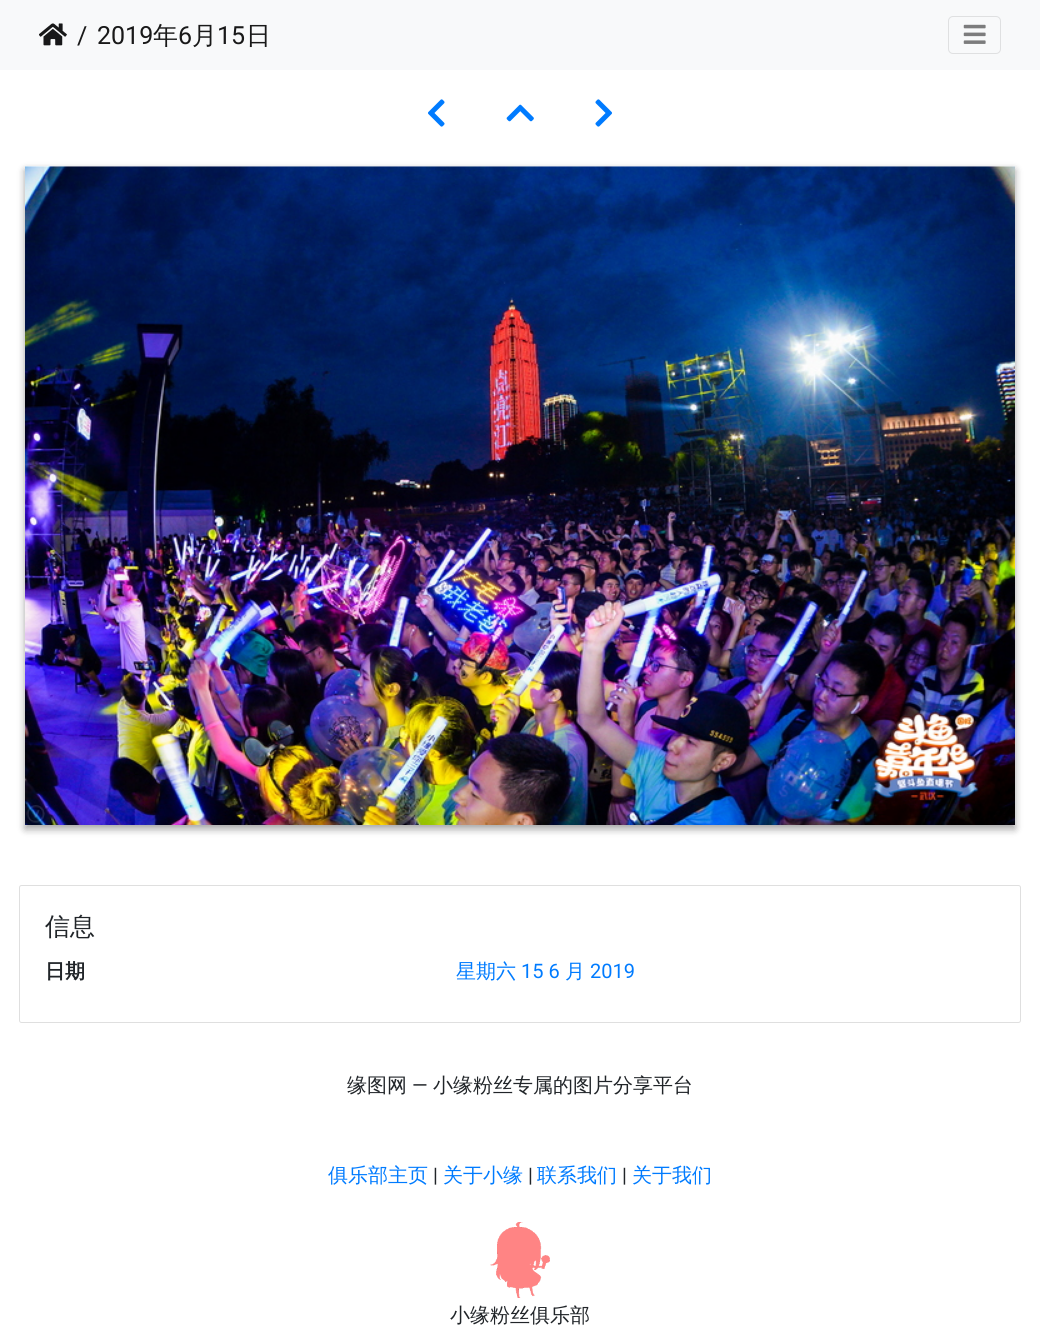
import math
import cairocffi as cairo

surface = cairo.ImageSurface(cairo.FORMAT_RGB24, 1040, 1326)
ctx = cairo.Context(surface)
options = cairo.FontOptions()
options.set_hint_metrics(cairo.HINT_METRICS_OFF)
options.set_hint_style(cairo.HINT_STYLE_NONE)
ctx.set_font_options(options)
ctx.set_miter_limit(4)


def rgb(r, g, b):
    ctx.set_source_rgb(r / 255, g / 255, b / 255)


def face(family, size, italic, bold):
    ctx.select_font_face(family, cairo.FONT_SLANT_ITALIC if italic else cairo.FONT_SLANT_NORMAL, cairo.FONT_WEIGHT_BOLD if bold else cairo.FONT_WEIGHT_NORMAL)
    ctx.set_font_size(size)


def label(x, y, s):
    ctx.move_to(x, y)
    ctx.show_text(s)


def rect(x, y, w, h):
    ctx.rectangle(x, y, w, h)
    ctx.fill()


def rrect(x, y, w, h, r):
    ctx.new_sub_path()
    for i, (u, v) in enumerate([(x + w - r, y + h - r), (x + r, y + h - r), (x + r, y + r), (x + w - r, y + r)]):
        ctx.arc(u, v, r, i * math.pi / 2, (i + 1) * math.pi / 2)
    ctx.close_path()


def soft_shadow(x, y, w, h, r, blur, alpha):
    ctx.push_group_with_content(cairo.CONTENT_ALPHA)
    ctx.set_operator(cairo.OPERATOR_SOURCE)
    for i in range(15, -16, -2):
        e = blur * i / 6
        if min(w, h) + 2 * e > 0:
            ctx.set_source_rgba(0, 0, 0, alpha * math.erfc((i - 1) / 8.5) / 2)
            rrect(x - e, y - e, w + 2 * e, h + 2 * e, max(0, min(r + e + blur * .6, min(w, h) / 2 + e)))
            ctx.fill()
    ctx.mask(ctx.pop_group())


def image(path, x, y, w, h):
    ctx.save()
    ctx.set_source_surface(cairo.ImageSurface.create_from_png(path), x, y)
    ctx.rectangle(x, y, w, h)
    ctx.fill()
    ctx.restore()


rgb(255, 255, 255)
ctx.paint()
rgb(248, 249, 250)
rect(0, 0, 1040, 70)
image('image0.png', 39, 23, 28, 23)
face('Roboto', 25, 0, 0)
rgb(25, 25, 25)
label(77, 44, '/')
label(97, 44, '2019')
face('WenQuanYi Zen Hei Medium', 25, 0, 0)
label(153, 44, '年')
face('Roboto', 25, 0, 0)
label(178, 44, '6')
face('WenQuanYi Zen Hei Medium', 25, 0, 0)
label(192, 44, '月')
face('Roboto', 25, 0, 0)
label(217, 44, '15')
face('WenQuanYi Zen Hei Medium', 25, 0, 0)
label(246, 44, '日')
rrect(948.5, 16.5, 52, 37, 4.5)
rgb(223, 224, 225)
ctx.set_line_width(1)
ctx.stroke()
image('image1.png', 963, 24, 23, 20)
image('image2.png', 428, 99, 17, 28)
image('image3.png', 506, 104, 28, 18)
image('image4.png', 595, 99, 17, 28)
ctx.save()
ctx.set_fill_rule(cairo.FILL_RULE_EVEN_ODD)
ctx.new_path()
ctx.move_to(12, 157)
ctx.line_to(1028, 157)
ctx.line_to(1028, 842)
ctx.line_to(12, 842)
ctx.close_path()
ctx.move_to(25, 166)
ctx.line_to(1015, 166)
ctx.line_to(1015, 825)
ctx.line_to(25, 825)
ctx.close_path()
ctx.clip()
rgb(0, 0, 0)
soft_shadow(25, 170, 990, 659, 0, 4, 0.23)
soft_shadow(25, 170, 990, 659, 0, 4, 0.16)
ctx.restore()
image('image5.png', 25, 166, 990, 659)
rrect(19.5, 885.5, 1001, 137, 2)
rgb(223, 223, 223)
ctx.stroke()
rgb(33, 37, 41)
label(45, 935, '信息')
face('WenQuanYi Zen Hei', 20, 0, 1)
label(45, 978, '日期')
face('WenQuanYi Zen Hei Medium', 20, 0, 0)
rgb(0, 123, 255)
label(456, 978, '星期六')
face('Roboto', 20, 0, 0)
label(521, 978, '15 6')
face('WenQuanYi Zen Hei Medium', 20, 0, 0)
label(565, 978, '月')
face('Roboto', 20, 0, 0)
label(590, 978, '2019')
face('WenQuanYi Zen Hei Medium', 20, 0, 0)
rgb(33, 37, 41)
label(347, 1092, '缘图网')
face('Roboto', 20, 0, 0)
label(412, 1092, '—')
face('WenQuanYi Zen Hei Medium', 20, 0, 0)
label(433, 1092, '小缘粉丝专属的图片分享平台')
rgb(0, 123, 255)
label(328, 1182, '俱乐部主页')
face('Roboto', 20, 0, 0)
rgb(33, 37, 41)
label(433, 1182, '|')
face('WenQuanYi Zen Hei Medium', 20, 0, 0)
rgb(0, 123, 255)
label(443, 1182, '关于小缘')
face('Roboto', 20, 0, 0)
rgb(33, 37, 41)
label(528, 1182, '|')
face('WenQuanYi Zen Hei Medium', 20, 0, 0)
rgb(0, 123, 255)
label(537, 1182, '联系我们')
face('Roboto', 20, 0, 0)
rgb(33, 37, 41)
label(622, 1182, '|')
face('WenQuanYi Zen Hei Medium', 20, 0, 0)
rgb(0, 123, 255)
label(632, 1182, '关于我们')
image('image6.png', 490, 1222, 60, 76)
rgb(33, 37, 41)
label(450, 1322, '小缘粉丝俱乐部')
surface.write_to_png('render.png')
